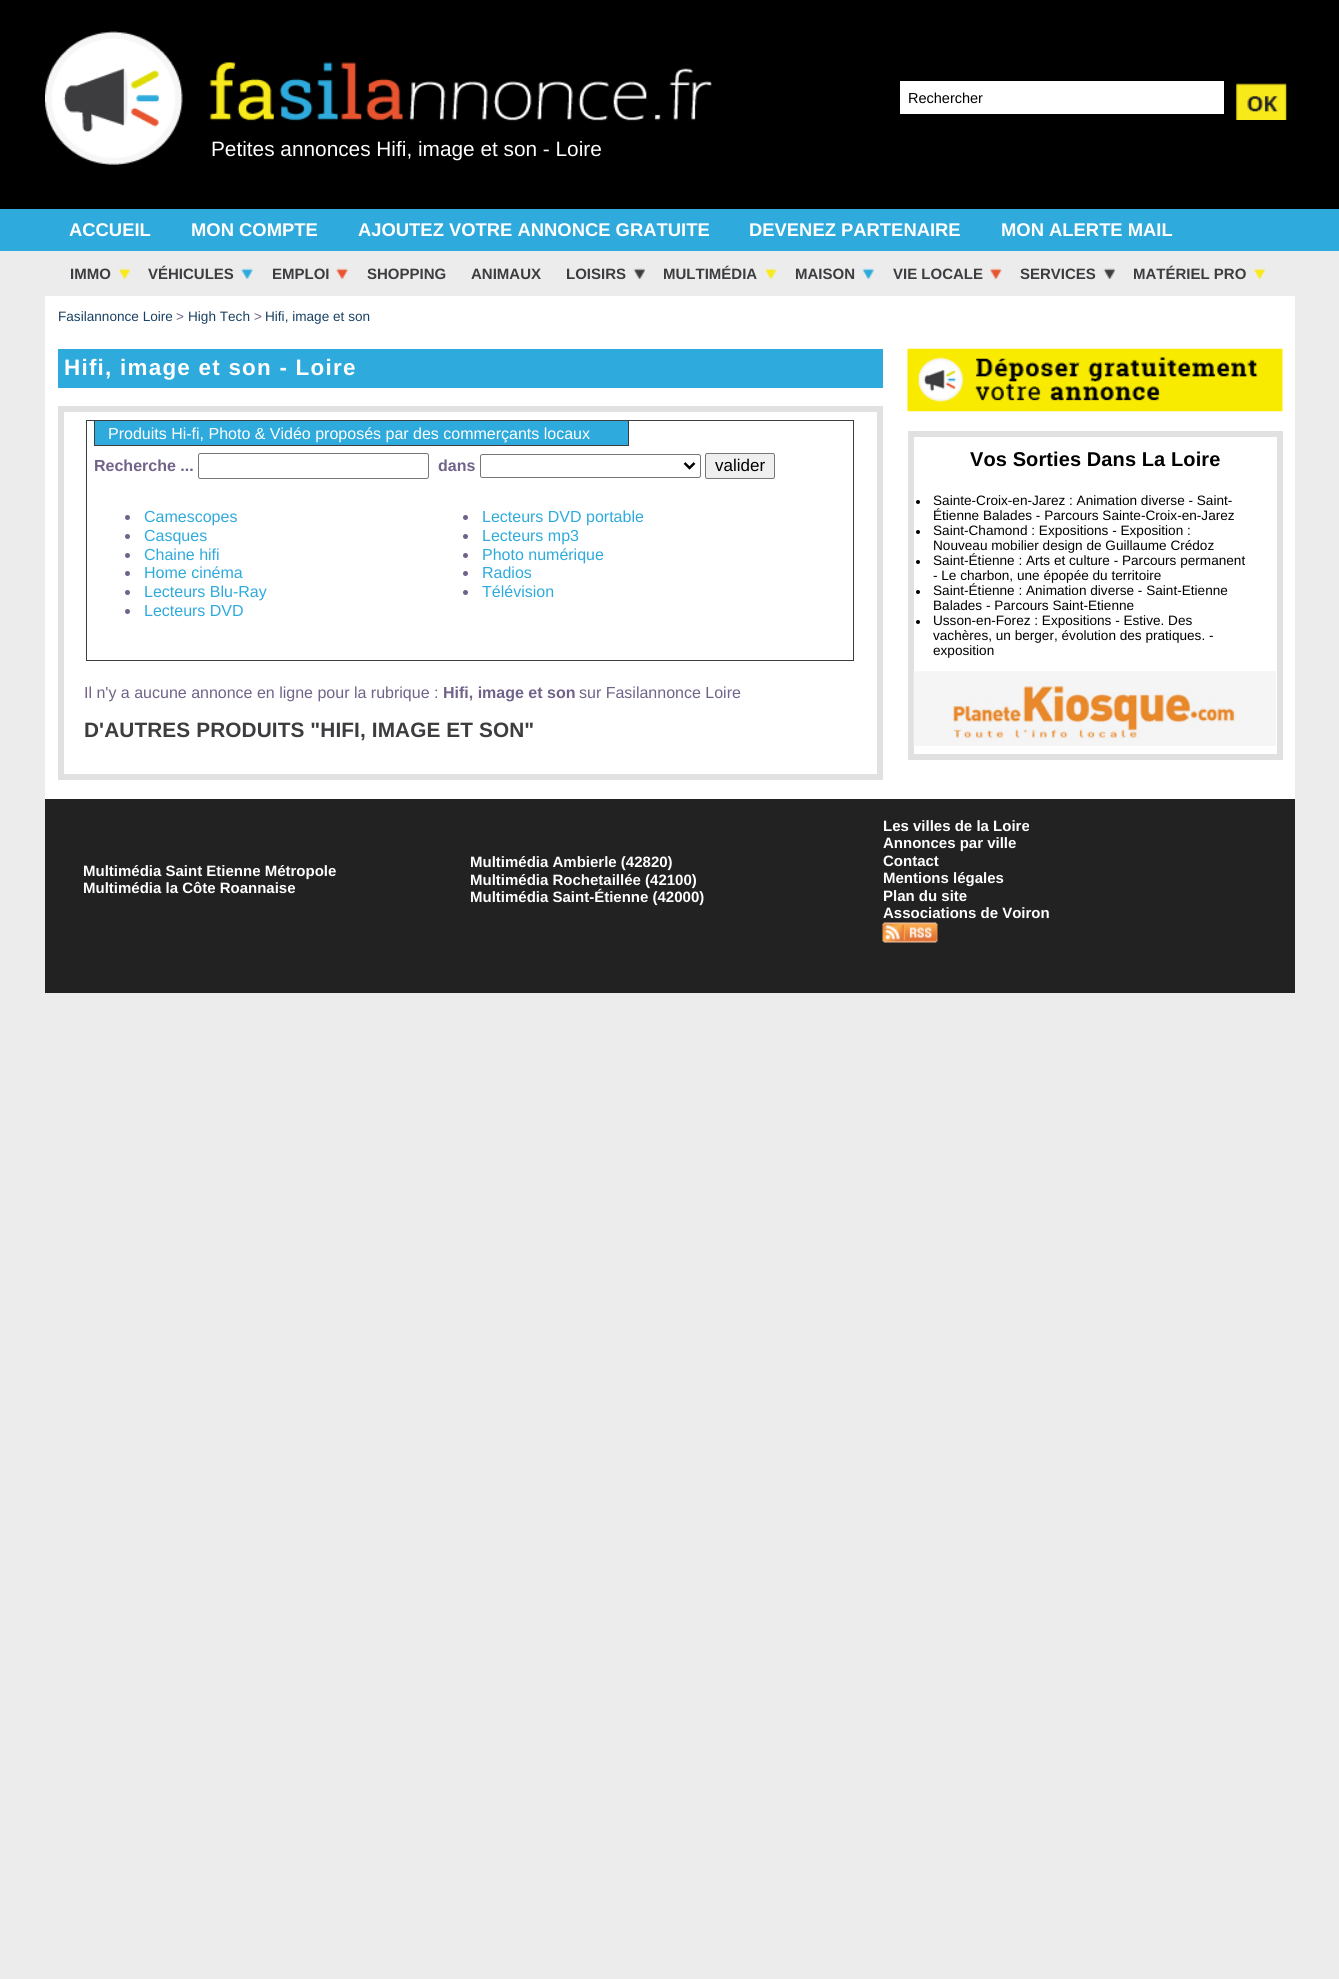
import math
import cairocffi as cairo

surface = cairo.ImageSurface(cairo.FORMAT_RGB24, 1339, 1979)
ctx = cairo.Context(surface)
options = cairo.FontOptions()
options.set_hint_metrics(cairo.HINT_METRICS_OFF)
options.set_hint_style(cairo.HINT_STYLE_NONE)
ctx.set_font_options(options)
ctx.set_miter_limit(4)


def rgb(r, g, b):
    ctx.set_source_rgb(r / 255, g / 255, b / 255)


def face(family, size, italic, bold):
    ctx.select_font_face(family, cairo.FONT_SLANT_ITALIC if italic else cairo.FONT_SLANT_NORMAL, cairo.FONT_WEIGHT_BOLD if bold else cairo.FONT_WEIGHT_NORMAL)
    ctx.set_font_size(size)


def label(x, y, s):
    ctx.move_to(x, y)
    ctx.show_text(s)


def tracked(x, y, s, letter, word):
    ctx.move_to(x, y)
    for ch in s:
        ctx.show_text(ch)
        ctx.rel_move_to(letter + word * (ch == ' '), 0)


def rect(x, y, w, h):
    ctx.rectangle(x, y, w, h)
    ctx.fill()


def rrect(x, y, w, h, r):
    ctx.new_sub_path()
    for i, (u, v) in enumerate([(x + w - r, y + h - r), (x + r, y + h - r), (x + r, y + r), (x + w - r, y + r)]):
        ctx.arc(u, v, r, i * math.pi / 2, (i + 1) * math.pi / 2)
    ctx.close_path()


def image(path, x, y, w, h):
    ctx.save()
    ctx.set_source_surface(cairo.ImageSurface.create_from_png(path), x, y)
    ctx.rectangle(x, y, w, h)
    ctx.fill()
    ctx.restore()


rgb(236, 236, 237)
ctx.paint()
rgb(0, 0, 0)
rect(0, 0, 1339, 209)
rgb(255, 255, 255)
rect(45, 296, 1250, 503)
image('image0.png', 45, 31, 667, 134)
rect(900, 81, 324, 33)
face('Liberation Sans', 14.5, 0, 0)
rgb(0, 0, 0)
label(908, 103, 'Rechercher')
image('image1.png', 1236, 83, 51, 37)
face('Liberation Sans', 20.8, 0, 0)
rgb(255, 255, 255)
label(211, 156, 'Petites annonces Hifi, image et son - Loire')
rgb(46, 170, 220)
rect(0, 209, 1339, 42)
face('Liberation Sans', 18.4, 0, 1)
rgb(255, 255, 255)
label(69, 236, 'ACCUEIL')
label(191, 236, 'MON COMPTE')
label(358, 236, 'AJOUTEZ VOTRE ANNONCE GRATUITE')
label(749, 236, 'DEVENEZ PARTENAIRE')
label(1001, 236, 'MON ALERTE MAIL')
image('image2.png', 118, 268, 12, 11)
face('Liberation Sans', 15, 0, 1)
rgb(61, 60, 63)
label(70, 279, 'IMMO')
image('image3.png', 241, 268, 12, 11)
label(148, 279, 'VÉHICULES')
image('image4.png', 336, 268, 12, 11)
label(272, 279, 'EMPLOI')
label(367, 279, 'SHOPPING')
label(471, 279, 'ANIMAUX')
image('image5.png', 633, 268, 12, 11)
label(566, 279, 'LOISIRS')
image('image6.png', 765, 268, 12, 11)
label(663, 279, 'MULTIMÉDIA')
image('image7.png', 862, 268, 12, 11)
label(795, 279, 'MAISON')
image('image8.png', 990, 268, 12, 11)
label(893, 279, 'VIE LOCALE')
image('image9.png', 1103, 268, 12, 11)
label(1020, 279, 'SERVICES')
image('image10.png', 1253, 268, 12, 11)
label(1133, 279, 'MATÉRIEL PRO')
face('Liberation Sans', 13.6, 0, 0)
rgb(24, 65, 99)
label(58, 321, 'Fasilannonce Loire')
rgb(113, 98, 137)
label(176, 321, '>')
rgb(24, 65, 99)
label(188, 321, 'High Tech')
rgb(113, 98, 137)
label(254, 321, '>')
rgb(24, 65, 99)
label(265, 321, 'Hifi, image et son')
rgb(46, 170, 220)
rect(58, 349, 825, 39)
face('Liberation Sans', 22.4, 0, 1)
rgb(255, 255, 255)
tracked(64, 375, 'Hifi, image et son - Loire', 1.25, 0)
ctx.rectangle(61, 409, 819, 368)
rgb(225, 225, 225)
ctx.set_line_width(6)
ctx.stroke()
ctx.rectangle(86.5, 420.5, 767, 240)
rgb(61, 60, 63)
ctx.set_line_width(1)
ctx.stroke()
rgb(46, 170, 220)
ctx.rectangle(94.5, 420.5, 534, 25)
ctx.fill_preserve()
rgb(61, 60, 63)
ctx.stroke()
face('Liberation Sans', 16, 0, 0)
rgb(255, 255, 255)
label(108, 439, 'Produits Hi-fi, Photo & Vidéo proposés par des commerçants locaux')
face('Liberation Sans', 16, 0, 1)
rgb(113, 98, 137)
label(94, 471, 'Recherche ...')
rrect(198.5, 453.5, 230, 25, 2)
rgb(118, 118, 118)
ctx.stroke()
rgb(113, 98, 137)
label(438, 471, 'dans')
rrect(480.5, 454.5, 220, 23, 2)
rgb(118, 118, 118)
ctx.stroke()
ctx.new_path()
ctx.move_to(684.5, 463)
ctx.line_to(689.5, 468)
ctx.line_to(694.5, 463)
rgb(0, 0, 0)
ctx.set_line_width(2.5)
ctx.stroke()
rgb(239, 239, 239)
rrect(705.5, 453.5, 69, 25, 2)
ctx.fill_preserve()
rgb(118, 118, 118)
ctx.set_line_width(1)
ctx.stroke()
face('Liberation Sans', 17, 0, 0)
rgb(0, 0, 0)
label(715, 471, 'valider')
rgb(113, 98, 137)
ctx.new_path()
ctx.arc(127.5, 517.5, 2.5, 0, 2 * math.pi)
ctx.fill()
face('Liberation Sans', 16, 0, 0)
rgb(46, 170, 220)
label(144, 522, 'Camescopes')
rgb(113, 98, 137)
ctx.new_path()
ctx.arc(127.5, 536.5, 2.5, 0, 2 * math.pi)
ctx.fill()
rgb(46, 170, 220)
label(144, 541, 'Casques')
rgb(113, 98, 137)
ctx.new_path()
ctx.arc(127.5, 555.5, 2.5, 0, 2 * math.pi)
ctx.fill()
rgb(46, 170, 220)
label(144, 560, 'Chaine hifi')
rgb(113, 98, 137)
ctx.new_path()
ctx.arc(127.5, 573.5, 2.5, 0, 2 * math.pi)
ctx.fill()
rgb(46, 170, 220)
label(144, 578, 'Home cinéma')
rgb(113, 98, 137)
ctx.new_path()
ctx.arc(127.5, 592.5, 2.5, 0, 2 * math.pi)
ctx.fill()
rgb(46, 170, 220)
label(144, 597, 'Lecteurs Blu-Ray')
rgb(113, 98, 137)
ctx.new_path()
ctx.arc(127.5, 611.5, 2.5, 0, 2 * math.pi)
ctx.fill()
rgb(46, 170, 220)
label(144, 616, 'Lecteurs DVD')
rgb(113, 98, 137)
ctx.new_path()
ctx.arc(465.5, 517.5, 2.5, 0, 2 * math.pi)
ctx.fill()
rgb(46, 170, 220)
label(482, 522, 'Lecteurs DVD portable')
rgb(113, 98, 137)
ctx.new_path()
ctx.arc(465.5, 536.5, 2.5, 0, 2 * math.pi)
ctx.fill()
rgb(46, 170, 220)
label(482, 541, 'Lecteurs mp3')
rgb(113, 98, 137)
ctx.new_path()
ctx.arc(465.5, 555.5, 2.5, 0, 2 * math.pi)
ctx.fill()
rgb(46, 170, 220)
label(482, 560, 'Photo numérique')
rgb(113, 98, 137)
ctx.new_path()
ctx.arc(465.5, 573.5, 2.5, 0, 2 * math.pi)
ctx.fill()
rgb(46, 170, 220)
label(482, 578, 'Radios')
rgb(113, 98, 137)
ctx.new_path()
ctx.arc(465.5, 592.5, 2.5, 0, 2 * math.pi)
ctx.fill()
rgb(46, 170, 220)
label(482, 597, 'Télévision')
rgb(113, 98, 137)
label(84, 698, 'Il n\'y a aucune annonce en ligne pour la rubrique :')
face('Liberation Sans', 16, 0, 1)
label(443, 698, 'Hifi, image et son')
face('Liberation Sans', 16, 0, 0)
label(579, 698, 'sur Fasilannonce Loire')
face('Liberation Sans', 20.8, 0, 1)
rgb(61, 60, 63)
tracked(84, 737, 'D\'AUTRES PRODUITS "HIFI, IMAGE ET SON"', 0.1, 0)
image('image11.png', 907, 348, 376, 64)
ctx.rectangle(911, 434, 369, 323)
rgb(225, 225, 225)
ctx.set_line_width(6)
ctx.stroke()
face('Liberation Sans', 20, 0, 1)
rgb(0, 0, 0)
tracked(970, 466, 'Vos Sorties Dans La Loire', 0.1, 0)
ctx.new_path()
ctx.arc(918, 502, 2, 0, 2 * math.pi)
ctx.fill()
face('Liberation Sans', 13.6, 0, 0)
label(933, 505, 'Sainte-Croix-en-Jarez : Animation diverse - Saint-')
label(933, 520, 'Étienne Balades - Parcours Sainte-Croix-en-Jarez')
ctx.new_path()
ctx.arc(918, 532, 2, 0, 2 * math.pi)
ctx.fill()
label(933, 535, 'Saint-Chamond : Expositions - Exposition :')
label(933, 550, 'Nouveau mobilier design de Guillaume Crédoz')
ctx.new_path()
ctx.arc(918, 562, 2, 0, 2 * math.pi)
ctx.fill()
label(933, 565, 'Saint-Étienne : Arts et culture - Parcours permanent')
label(933, 580, '- Le charbon, une épopée du territoire')
ctx.new_path()
ctx.arc(918, 592, 2, 0, 2 * math.pi)
ctx.fill()
label(933, 595, 'Saint-Étienne : Animation diverse - Saint-Etienne')
label(933, 610, 'Balades - Parcours Saint-Etienne')
ctx.new_path()
ctx.arc(918, 622, 2, 0, 2 * math.pi)
ctx.fill()
label(933, 625, 'Usson-en-Forez : Expositions - Estive. Des')
label(933, 640, 'vachères, un berger, évolution des pratiques. -')
label(933, 655, 'exposition')
image('image12.png', 913, 671, 363, 75)
rgb(34, 34, 34)
rect(45, 799, 1250, 194)
face('Liberation Sans', 15, 0, 1)
rgb(255, 255, 255)
label(83, 876, 'Multimédia Saint Etienne Métropole')
label(83, 893, 'Multimédia la Côte Roannaise')
label(470, 867, 'Multimédia Ambierle (42820)')
label(470, 885, 'Multimédia Rochetaillée (42100)')
label(470, 902, 'Multimédia Saint-Étienne (42000)')
label(883, 831, 'Les villes de la Loire')
label(883, 848, 'Annonces par ville')
label(883, 866, 'Contact')
label(883, 883, 'Mentions légales')
label(883, 901, 'Plan du site')
label(883, 918, 'Associations de Voiron')
image('image13.png', 882, 922, 56, 21)
surface.write_to_png('render.png')
